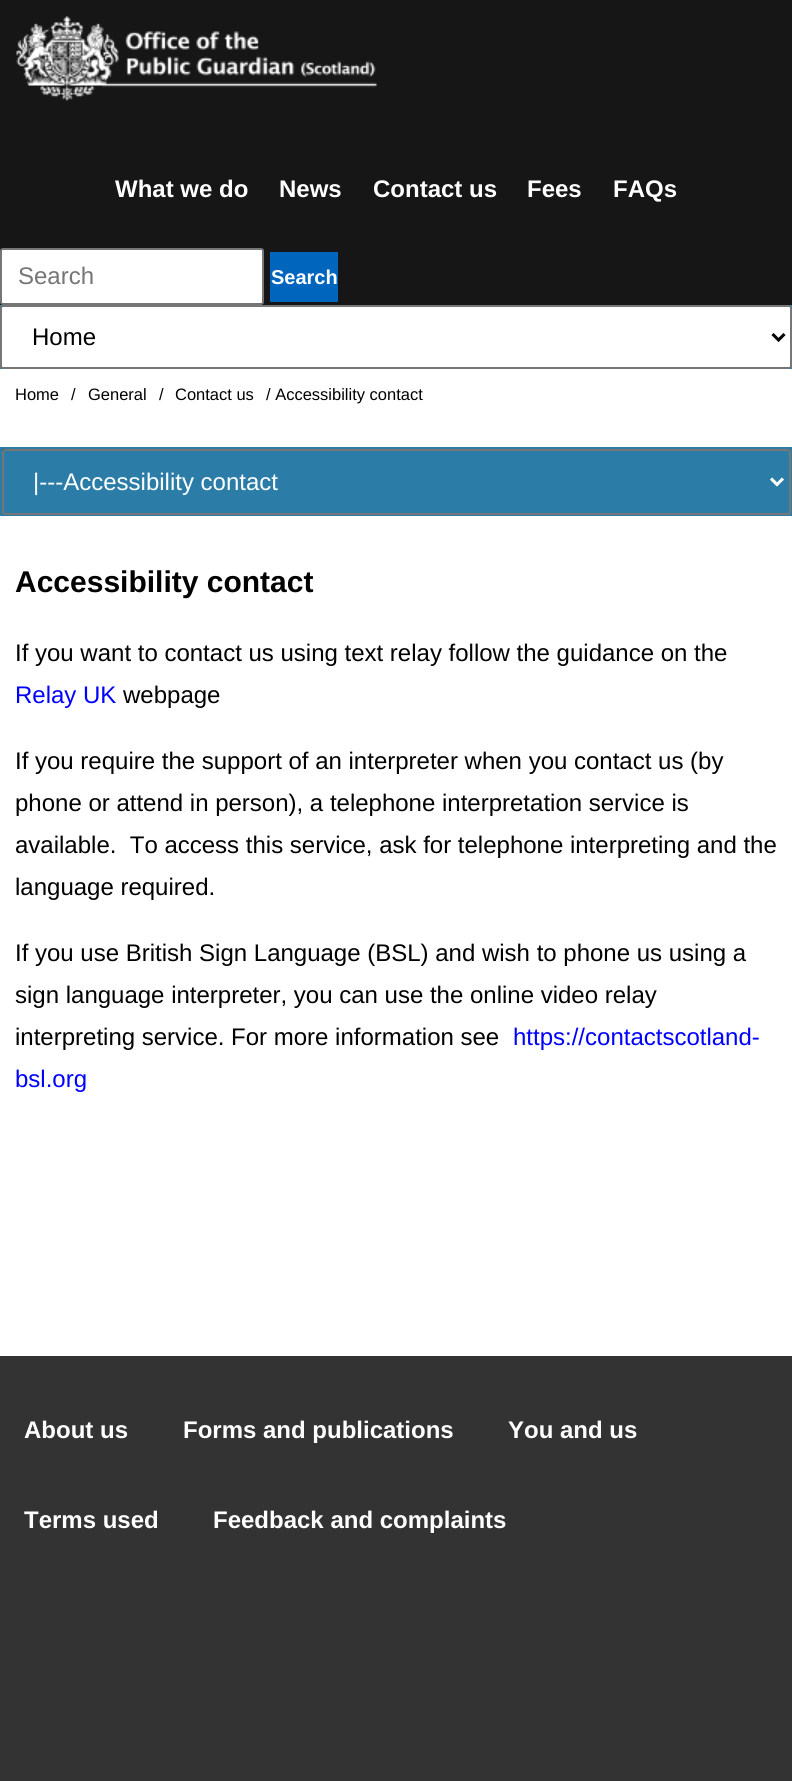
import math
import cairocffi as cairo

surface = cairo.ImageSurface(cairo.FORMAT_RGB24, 792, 1781)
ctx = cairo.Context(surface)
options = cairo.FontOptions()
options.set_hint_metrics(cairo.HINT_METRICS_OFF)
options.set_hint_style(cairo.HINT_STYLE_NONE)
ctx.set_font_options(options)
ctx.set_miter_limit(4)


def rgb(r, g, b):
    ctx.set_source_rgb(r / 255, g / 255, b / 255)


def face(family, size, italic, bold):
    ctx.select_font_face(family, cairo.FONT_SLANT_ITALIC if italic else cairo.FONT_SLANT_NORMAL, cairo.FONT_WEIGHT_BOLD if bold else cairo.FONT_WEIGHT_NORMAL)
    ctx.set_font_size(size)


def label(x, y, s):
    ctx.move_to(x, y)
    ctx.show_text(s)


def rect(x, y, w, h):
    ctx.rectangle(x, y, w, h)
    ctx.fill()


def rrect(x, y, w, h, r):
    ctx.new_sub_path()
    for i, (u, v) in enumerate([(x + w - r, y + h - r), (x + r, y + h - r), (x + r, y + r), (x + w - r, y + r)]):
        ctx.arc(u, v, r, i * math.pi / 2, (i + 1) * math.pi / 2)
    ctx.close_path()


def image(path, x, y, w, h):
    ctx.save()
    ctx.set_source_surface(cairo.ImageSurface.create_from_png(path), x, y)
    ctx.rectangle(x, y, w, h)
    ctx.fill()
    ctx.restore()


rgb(51, 51, 51)
ctx.paint()
rgb(22, 22, 22)
rect(0, 0, 792, 305)
image('image0.png', 16, 16, 361, 85)
face('Liberation Sans', 24, 0, 1)
rgb(255, 255, 255)
label(115, 197, 'What we do')
label(279, 197, 'News')
label(373, 197, 'Contact us')
label(527, 197, 'Fees')
label(613, 197, 'FAQs')
rrect(1, 249, 262, 55, 2)
ctx.fill_preserve()
rgb(118, 118, 118)
ctx.stroke()
face('Liberation Sans', 24, 0, 0)
rgb(117, 117, 117)
label(18, 284, 'Search')
rgb(0, 101, 189)
rect(270, 252, 68, 50)
face('Liberation Sans', 20, 0, 1)
rgb(255, 255, 255)
label(271, 284, 'Search')
rgb(43, 125, 167)
rect(0, 305, 792, 64)
rgb(255, 255, 255)
rrect(1, 306, 790, 62, 2)
ctx.fill_preserve()
rgb(118, 118, 118)
ctx.stroke()
ctx.new_path()
ctx.move_to(772.5, 334)
ctx.line_to(778.5, 340)
ctx.line_to(784.5, 334)
rgb(0, 0, 0)
ctx.set_line_width(3)
ctx.stroke()
face('Liberation Sans', 24, 0, 0)
label(32, 345, 'Home')
rgb(255, 255, 255)
rect(0, 369, 792, 987)
face('Liberation Sans', 16.5, 0, 0)
rgb(0, 0, 0)
label(15, 400, 'Home')
label(71, 400, '/')
label(88, 400, 'General')
label(159, 400, '/')
label(175, 400, 'Contact us')
label(266, 400, '/ Accessibility contact')
rgb(6, 102, 152)
ctx.rectangle(1, 448, 790, 67)
ctx.fill_preserve()
rgb(43, 125, 167)
ctx.set_line_width(2)
ctx.stroke()
rrect(3, 450, 787, 64, 2)
ctx.fill_preserve()
rgb(118, 118, 118)
ctx.stroke()
ctx.new_path()
ctx.move_to(771, 478.5)
ctx.line_to(777, 484.5)
ctx.line_to(783, 478.5)
rgb(255, 255, 255)
ctx.set_line_width(3)
ctx.stroke()
face('Liberation Sans', 24, 0, 0)
label(33, 490, '|---Accessibility contact')
face('Liberation Sans', 30, 0, 1)
rgb(0, 0, 0)
label(15, 592, 'Accessibility contact')
face('Liberation Sans', 24, 0, 0)
label(15, 661, 'If you want to contact us using text relay follow the guidance on the')
rgb(0, 0, 255)
label(15, 703, 'Relay UK')
rgb(0, 0, 0)
label(123, 703, 'webpage')
label(15, 769, 'If you require the support of an interpreter when you contact us (by')
label(15, 811, 'phone or attend in person), a telephone interpretation service is')
label(15, 853, 'available.  To access this service, ask for telephone interpreting and the')
label(15, 895, 'language required.')
label(15, 961, 'If you use British Sign Language (BSL) and wish to phone us using a')
label(15, 1003, 'sign language interpreter, you can use the online video relay')
label(15, 1045, 'interpreting service. For more information see')
rgb(0, 0, 255)
label(513, 1045, 'https://contactscotland-')
label(15, 1087, 'bsl.org')
face('Liberation Sans', 24, 0, 1)
rgb(255, 255, 255)
label(24, 1438, 'About us')
label(183, 1438, 'Forms and publications')
label(508, 1438, 'You and us')
label(24, 1528, 'Terms used')
label(213, 1528, 'Feedback and complaints')
surface.write_to_png('render.png')
